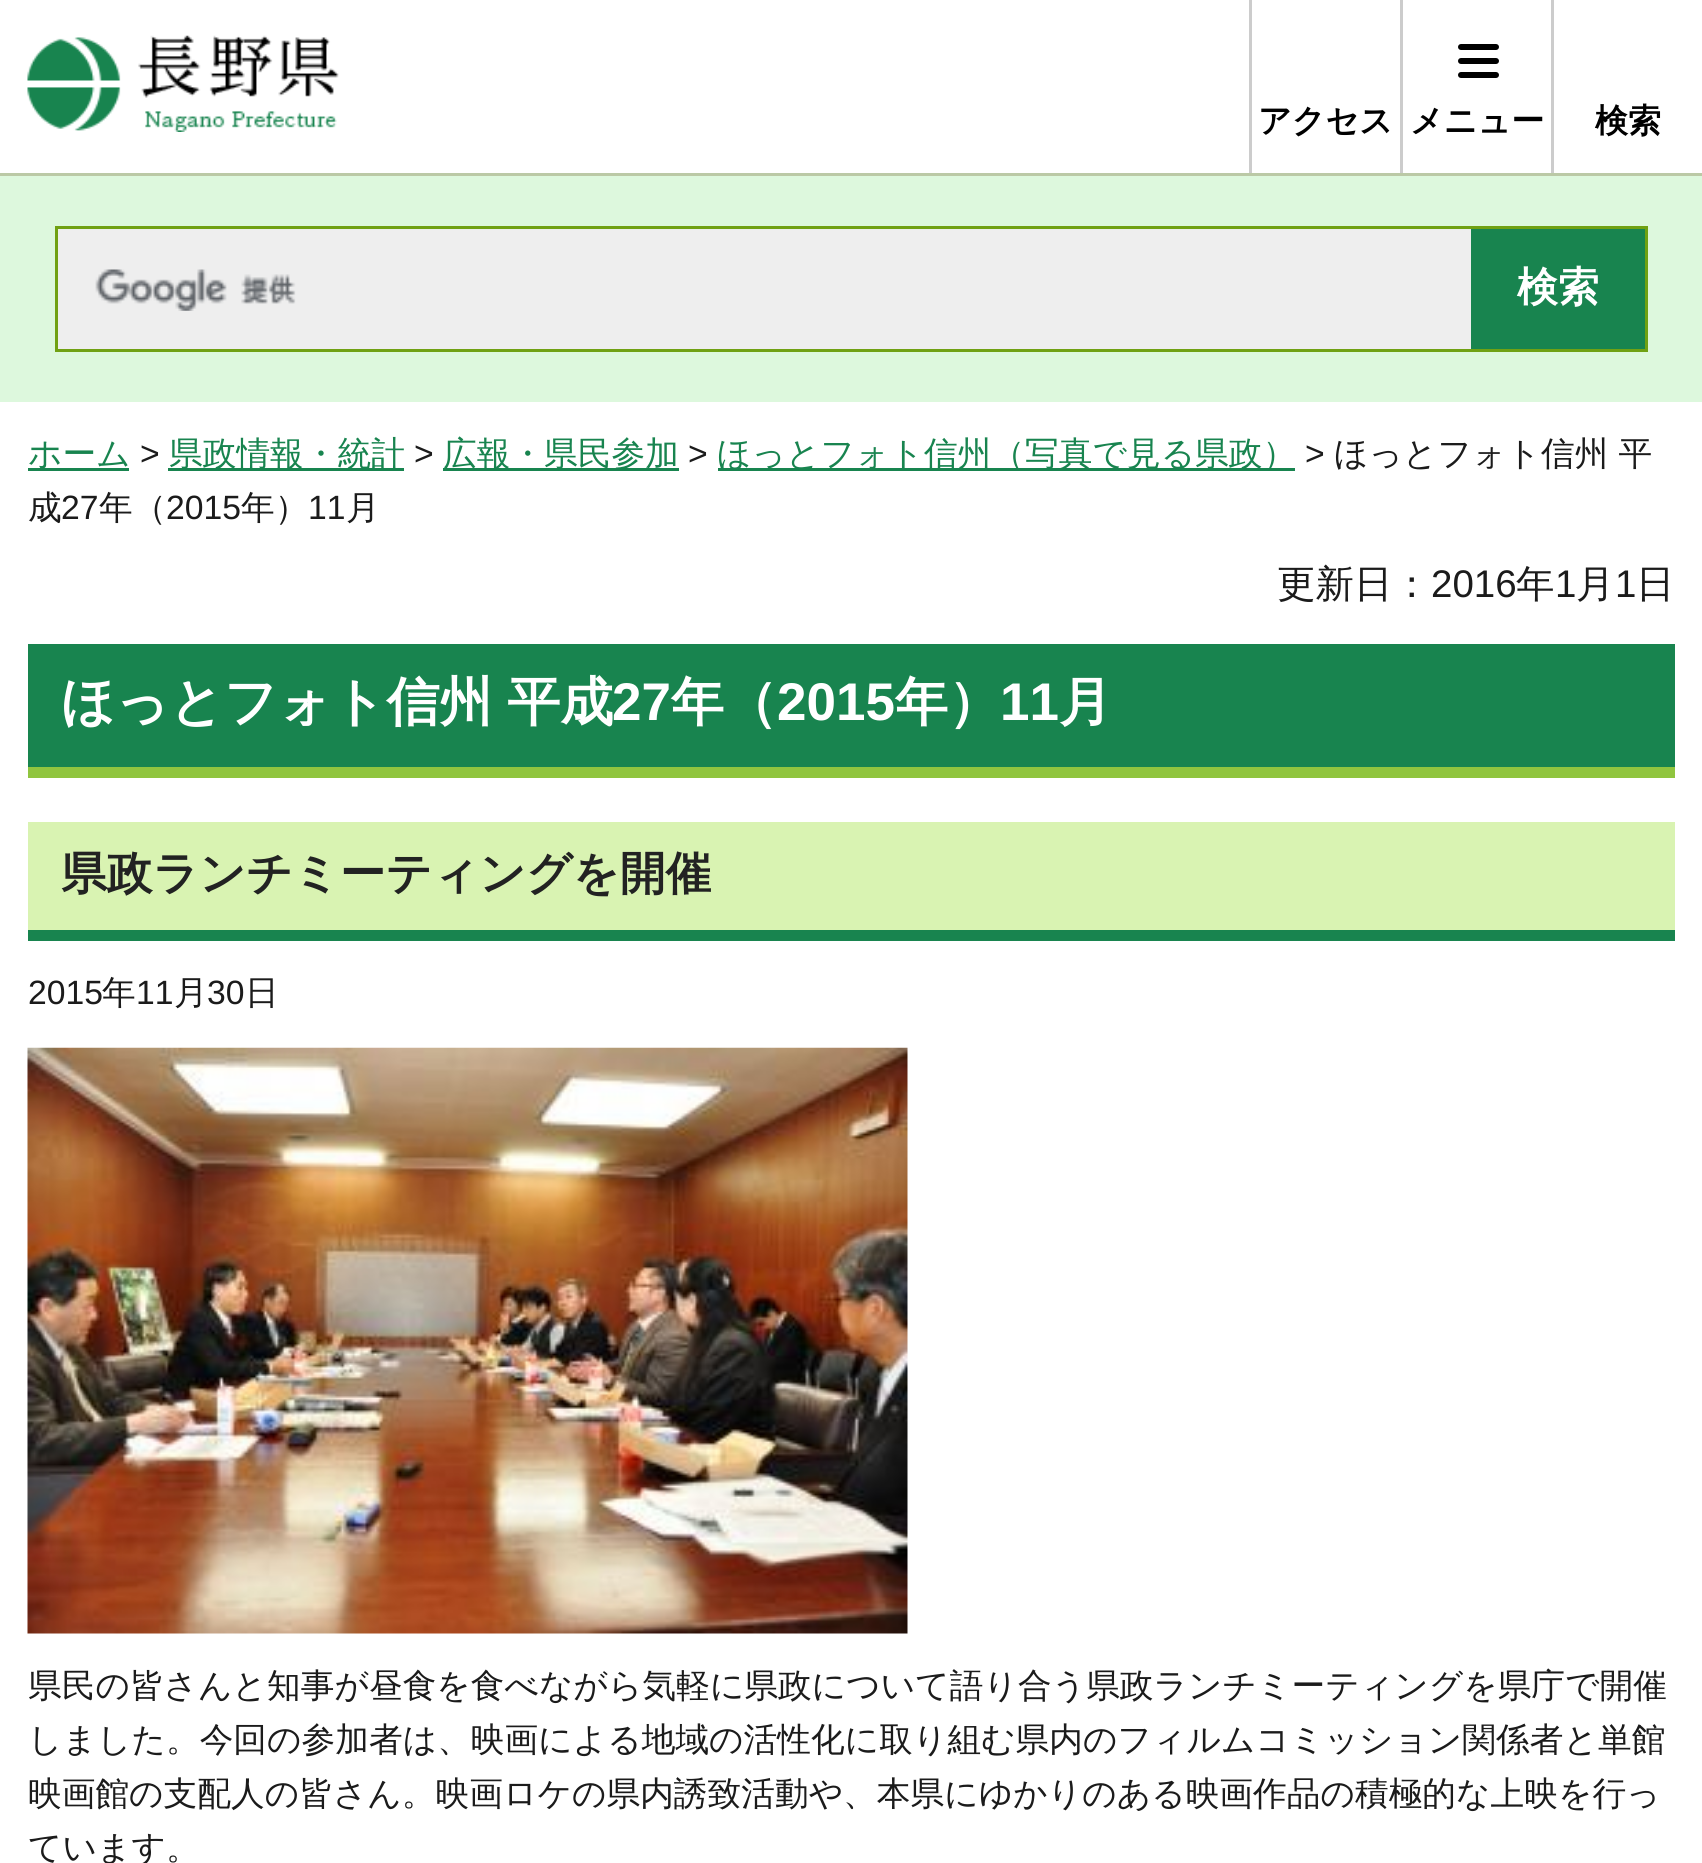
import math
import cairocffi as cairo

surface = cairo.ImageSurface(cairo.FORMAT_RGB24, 1702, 1863)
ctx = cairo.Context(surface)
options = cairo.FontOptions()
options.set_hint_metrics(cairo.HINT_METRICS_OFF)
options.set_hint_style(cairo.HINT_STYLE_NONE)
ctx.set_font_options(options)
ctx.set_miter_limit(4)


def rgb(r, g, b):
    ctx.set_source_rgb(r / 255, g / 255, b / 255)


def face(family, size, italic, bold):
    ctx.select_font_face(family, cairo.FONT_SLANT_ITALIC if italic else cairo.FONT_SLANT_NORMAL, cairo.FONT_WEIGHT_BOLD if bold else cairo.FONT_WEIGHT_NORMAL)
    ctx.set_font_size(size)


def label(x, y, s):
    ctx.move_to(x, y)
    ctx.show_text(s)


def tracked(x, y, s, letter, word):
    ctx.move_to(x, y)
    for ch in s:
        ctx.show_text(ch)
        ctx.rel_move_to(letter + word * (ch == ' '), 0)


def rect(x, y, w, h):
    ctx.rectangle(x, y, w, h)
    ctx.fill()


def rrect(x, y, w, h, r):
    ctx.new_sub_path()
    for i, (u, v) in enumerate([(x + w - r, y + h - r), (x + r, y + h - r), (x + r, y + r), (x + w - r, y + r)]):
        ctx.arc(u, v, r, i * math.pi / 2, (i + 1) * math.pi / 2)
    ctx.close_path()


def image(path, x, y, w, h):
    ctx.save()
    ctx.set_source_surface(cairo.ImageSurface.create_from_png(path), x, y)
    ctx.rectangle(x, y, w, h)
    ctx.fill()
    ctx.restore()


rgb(255, 255, 255)
ctx.paint()
rgb(187, 201, 166)
rect(0, 173, 1702, 3)
image('image0.png', 27, 35, 312, 97)
rgb(204, 204, 204)
rect(1249, 0, 3, 173)
face('WenQuanYi Zen Hei', 33, 0, 1)
rgb(0, 0, 0)
label(1258, 132, 'アクセス')
rgb(204, 204, 204)
rect(1400, 0, 3, 173)
rgb(0, 0, 0)
rrect(1458, 44, 41, 6, 3)
ctx.fill()
rrect(1458, 58, 41, 6, 3)
ctx.fill()
rrect(1458, 72, 41, 6, 3)
ctx.fill()
label(1410, 132, 'メニュー')
rgb(204, 204, 204)
rect(1551, 0, 3, 173)
rgb(0, 0, 0)
label(1595, 132, '検索')
rgb(221, 248, 221)
rect(0, 176, 1702, 226)
rgb(238, 238, 238)
rect(58, 229, 1413, 120)
image('image1.png', 95, 269, 201, 42)
ctx.rectangle(56.5, 227.5, 1589, 123)
rgb(112, 161, 19)
ctx.set_line_width(3)
ctx.stroke()
rgb(24, 132, 79)
rect(1471, 229, 174, 120)
rgb(112, 161, 19)
rect(1647, 226, 1, 126)
face('WenQuanYi Zen Hei', 41, 0, 1)
rgb(255, 255, 255)
label(1517, 301, '検索')
rgb(24, 132, 79)
rect(28, 468, 101, 3)
face('WenQuanYi Zen Hei Medium', 33.7, 0, 0)
label(28, 465, 'ホーム')
face('Liberation Sans', 33.7, 0, 0)
rgb(27, 27, 27)
label(140, 465, '>')
rgb(24, 132, 79)
rect(168, 468, 236, 3)
face('WenQuanYi Zen Hei Medium', 33.7, 0, 0)
label(169, 465, '県政情報・統計')
face('Liberation Sans', 33.7, 0, 0)
rgb(27, 27, 27)
label(414, 465, '>')
rgb(24, 132, 79)
rect(443, 468, 236, 3)
face('WenQuanYi Zen Hei Medium', 33.7, 0, 0)
label(443, 465, '広報・県民参加')
face('Liberation Sans', 33.7, 0, 0)
rgb(27, 27, 27)
label(688, 465, '>')
rgb(24, 132, 79)
rect(718, 468, 577, 3)
face('WenQuanYi Zen Hei Medium', 33.7, 0, 0)
label(717, 465, 'ほっとフォト信州（写真で見る県政）')
face('Liberation Sans', 33.7, 0, 0)
rgb(27, 27, 27)
label(1305, 465, '>')
face('WenQuanYi Zen Hei Medium', 33.7, 0, 0)
label(1334, 465, 'ほっとフォト信州 平')
label(28, 519, '成')
face('Liberation Sans', 33.7, 0, 0)
label(61, 519, '27')
face('WenQuanYi Zen Hei Medium', 33.7, 0, 0)
label(99, 519, '年（')
face('Liberation Sans', 33.7, 0, 0)
label(166, 519, '2015')
face('WenQuanYi Zen Hei Medium', 33.7, 0, 0)
label(241, 519, '年）')
face('Liberation Sans', 33.7, 0, 0)
label(308, 519, '11')
face('WenQuanYi Zen Hei Medium', 33.7, 0, 0)
label(346, 519, '月')
face('WenQuanYi Zen Hei Medium', 38.5, 0, 0)
label(1277, 597, '更新日：')
face('Liberation Sans', 38.5, 0, 0)
label(1431, 597, '2016')
face('WenQuanYi Zen Hei Medium', 38.5, 0, 0)
label(1516, 597, '年')
face('Liberation Sans', 38.5, 0, 0)
label(1555, 597, '1')
face('WenQuanYi Zen Hei Medium', 38.5, 0, 0)
label(1576, 597, '月')
face('Liberation Sans', 38.5, 0, 0)
label(1615, 597, '1')
face('WenQuanYi Zen Hei Medium', 38.5, 0, 0)
label(1636, 597, '日')
rgb(24, 132, 79)
rect(28, 644, 1647, 123)
rgb(144, 197, 63)
rect(28, 767, 1647, 11)
face('WenQuanYi Zen Hei', 53, 0, 1)
rgb(255, 255, 255)
tracked(61, 720, 'ほっとフォト信州 平成', 0, -1)
face('Liberation Sans', 53, 0, 1)
label(612, 720, '27')
face('WenQuanYi Zen Hei', 53, 0, 1)
label(671, 720, '年（')
face('Liberation Sans', 53, 0, 1)
label(777, 720, '2015')
face('WenQuanYi Zen Hei', 53, 0, 1)
label(895, 720, '年）')
face('Liberation Sans', 53, 0, 1)
label(1000, 720, '11')
face('WenQuanYi Zen Hei', 53, 0, 1)
label(1059, 720, '月')
rgb(217, 243, 178)
rect(28, 822, 1647, 108)
rgb(24, 132, 79)
rect(28, 930, 1647, 11)
face('WenQuanYi Zen Hei', 45.75, 0, 1)
rgb(34, 34, 34)
label(61, 889, '県政ランチミーティングを開催')
face('Liberation Sans', 33.7, 0, 0)
rgb(27, 27, 27)
label(28, 1004, '2015')
face('WenQuanYi Zen Hei Medium', 33.7, 0, 0)
label(102, 1004, '年')
face('Liberation Sans', 33.7, 0, 0)
label(136, 1004, '11')
face('WenQuanYi Zen Hei Medium', 33.7, 0, 0)
label(174, 1004, '月')
face('Liberation Sans', 33.7, 0, 0)
label(207, 1004, '30')
face('WenQuanYi Zen Hei Medium', 33.7, 0, 0)
label(245, 1004, '日')
image('image2.png', 27, 1047, 881, 587)
label(28, 1697, '県民の皆さんと知事が昼食を食べながら気軽に県政について語り合う県政ランチミーティングを県庁で開催')
label(28, 1751, 'しました。今回の参加者は、映画による地域の活性化に取り組む県内のフィルムコミッション関係者と単館')
label(28, 1805, '映画館の支配人の皆さん。映画ロケの県内誘致活動や、本県にゆかりのある映画作品の積極的な上映を行っ')
label(28, 1859, 'ています。')
surface.write_to_png('render.png')
